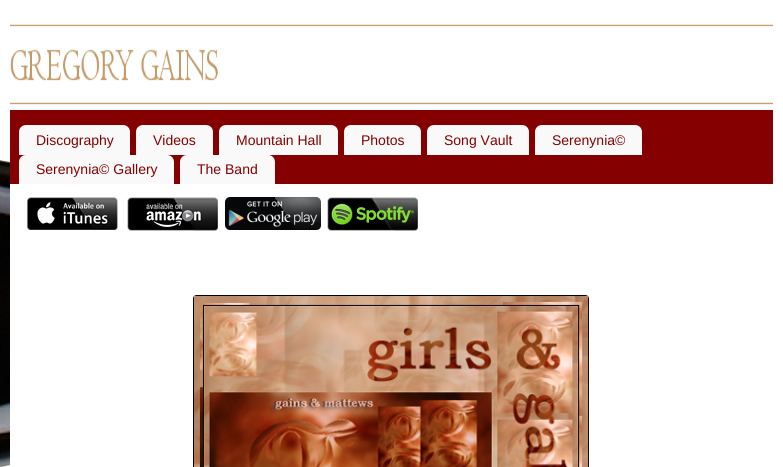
import math
import cairocffi as cairo

surface = cairo.ImageSurface(cairo.FORMAT_RGB24, 783, 467)
ctx = cairo.Context(surface)
options = cairo.FontOptions()
options.set_hint_metrics(cairo.HINT_METRICS_OFF)
options.set_hint_style(cairo.HINT_STYLE_NONE)
ctx.set_font_options(options)
ctx.set_miter_limit(4)


def rgb(r, g, b):
    ctx.set_source_rgb(r / 255, g / 255, b / 255)


def face(family, size, italic, bold):
    ctx.select_font_face(family, cairo.FONT_SLANT_ITALIC if italic else cairo.FONT_SLANT_NORMAL, cairo.FONT_WEIGHT_BOLD if bold else cairo.FONT_WEIGHT_NORMAL)
    ctx.set_font_size(size)


def label(x, y, s):
    ctx.move_to(x, y)
    ctx.show_text(s)


def rect(x, y, w, h):
    ctx.rectangle(x, y, w, h)
    ctx.fill()


def image(path, x, y, w, h):
    ctx.save()
    ctx.set_source_surface(cairo.ImageSurface.create_from_png(path), x, y)
    ctx.rectangle(x, y, w, h)
    ctx.fill()
    ctx.restore()


rgb(255, 255, 255)
ctx.paint()
image('image0.png', 0, 160, 10, 307)
rgb(133, 0, 0)
rect(10, 110, 763, 74)
image('image1.png', 10, 20, 763, 90)
rgb(249, 249, 249)
ctx.new_path()
ctx.move_to(26, 125)
ctx.line_to(123, 125)
ctx.curve_to(127, 125, 130, 128, 130, 132)
ctx.line_to(130, 155)
ctx.line_to(19, 155)
ctx.line_to(19, 132)
ctx.curve_to(19, 128, 22, 125, 26, 125)
ctx.close_path()
ctx.fill()
face('Liberation Sans', 14, 0, 0)
rgb(133, 0, 0)
label(36, 145, 'Discography')
rgb(249, 249, 249)
ctx.new_path()
ctx.move_to(143, 125)
ctx.line_to(206, 125)
ctx.curve_to(210, 125, 213, 128, 213, 132)
ctx.line_to(213, 155)
ctx.line_to(136, 155)
ctx.line_to(136, 132)
ctx.curve_to(136, 128, 139, 125, 143, 125)
ctx.close_path()
ctx.fill()
rgb(133, 0, 0)
label(153, 145, 'Videos')
rgb(249, 249, 249)
ctx.new_path()
ctx.move_to(226, 125)
ctx.line_to(331, 125)
ctx.curve_to(335, 125, 338, 128, 338, 132)
ctx.line_to(338, 155)
ctx.line_to(219, 155)
ctx.line_to(219, 132)
ctx.curve_to(219, 128, 222, 125, 226, 125)
ctx.close_path()
ctx.fill()
rgb(133, 0, 0)
label(236, 145, 'Mountain Hall')
rgb(249, 249, 249)
ctx.new_path()
ctx.move_to(351, 125)
ctx.line_to(414, 125)
ctx.curve_to(418, 125, 421, 128, 421, 132)
ctx.line_to(421, 155)
ctx.line_to(344, 155)
ctx.line_to(344, 132)
ctx.curve_to(344, 128, 347, 125, 351, 125)
ctx.close_path()
ctx.fill()
rgb(133, 0, 0)
label(361, 145, 'Photos')
rgb(249, 249, 249)
ctx.new_path()
ctx.move_to(434, 125)
ctx.line_to(522, 125)
ctx.curve_to(526, 125, 529, 128, 529, 132)
ctx.line_to(529, 155)
ctx.line_to(427, 155)
ctx.line_to(427, 132)
ctx.curve_to(427, 128, 430, 125, 434, 125)
ctx.close_path()
ctx.fill()
rgb(133, 0, 0)
label(444, 145, 'Song Vault')
rgb(249, 249, 249)
ctx.new_path()
ctx.move_to(542, 125)
ctx.line_to(635, 125)
ctx.curve_to(639, 125, 642, 128, 642, 132)
ctx.line_to(642, 155)
ctx.line_to(535, 155)
ctx.line_to(535, 132)
ctx.curve_to(535, 128, 538, 125, 542, 125)
ctx.close_path()
ctx.fill()
rgb(133, 0, 0)
label(552, 145, 'Serenynia©')
rgb(249, 249, 249)
ctx.new_path()
ctx.move_to(26, 155)
ctx.line_to(167, 155)
ctx.curve_to(171, 155, 174, 158, 174, 162)
ctx.line_to(174, 184)
ctx.line_to(19, 184)
ctx.line_to(19, 162)
ctx.curve_to(19, 158, 22, 155, 26, 155)
ctx.close_path()
ctx.fill()
rgb(133, 0, 0)
label(36, 174, 'Serenynia© Gallery')
rgb(249, 249, 249)
ctx.new_path()
ctx.move_to(187, 155)
ctx.line_to(268, 155)
ctx.curve_to(272, 155, 275, 158, 275, 162)
ctx.line_to(275, 184)
ctx.line_to(180, 184)
ctx.line_to(180, 162)
ctx.curve_to(180, 158, 183, 155, 187, 155)
ctx.close_path()
ctx.fill()
rgb(133, 0, 0)
label(197, 174, 'The Band')
image('image2.png', 27, 197, 91, 33)
image('image3.png', 127, 197, 91, 34)
image('image4.png', 225, 197, 96, 33)
image('image5.png', 327, 197, 91, 34)
image('image6.png', 193, 295, 396, 172)
surface.write_to_png('render.png')
